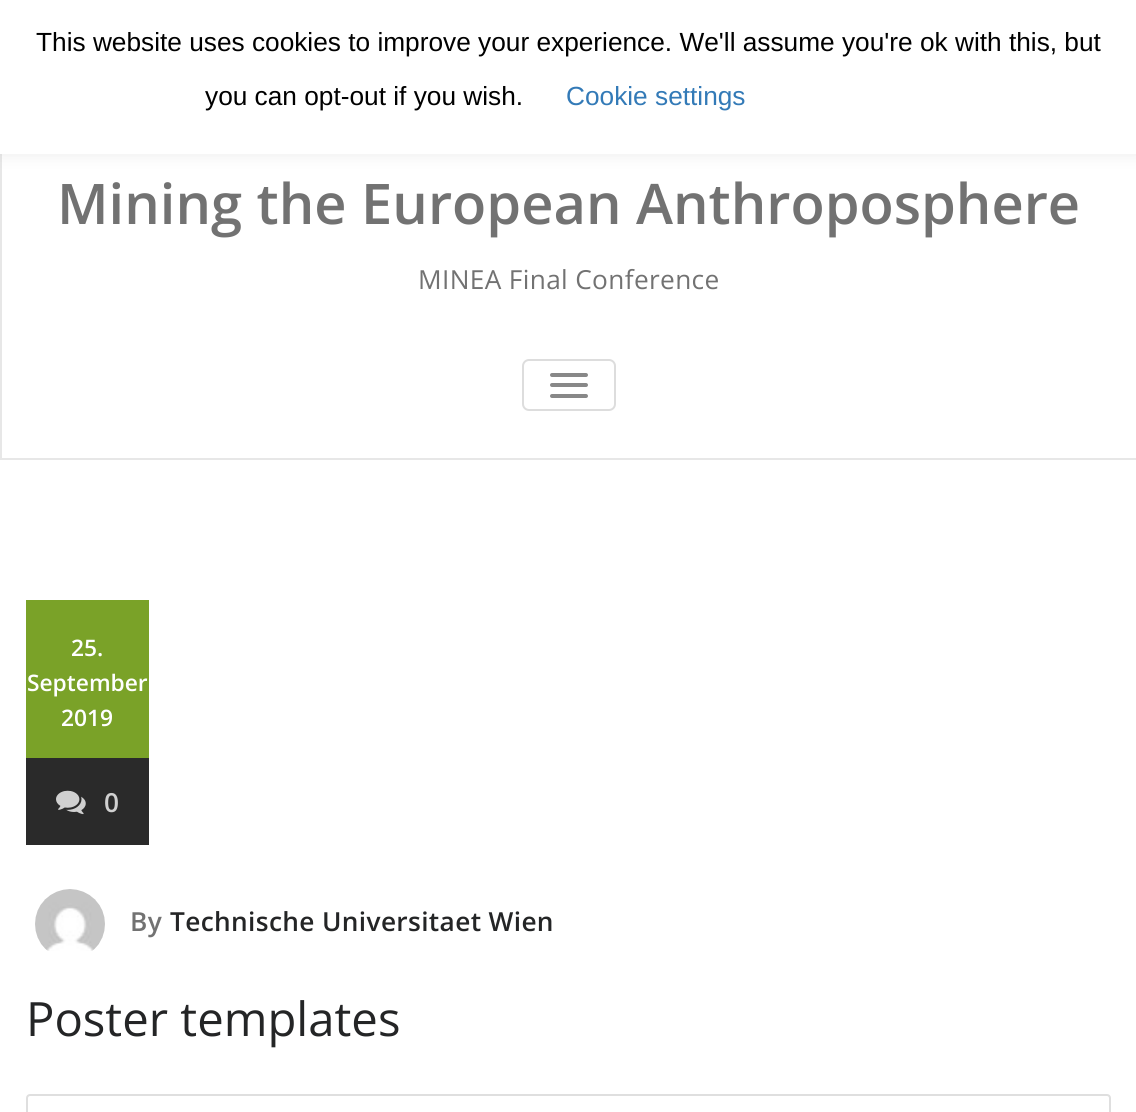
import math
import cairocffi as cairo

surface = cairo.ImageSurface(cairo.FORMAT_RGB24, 1136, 1112)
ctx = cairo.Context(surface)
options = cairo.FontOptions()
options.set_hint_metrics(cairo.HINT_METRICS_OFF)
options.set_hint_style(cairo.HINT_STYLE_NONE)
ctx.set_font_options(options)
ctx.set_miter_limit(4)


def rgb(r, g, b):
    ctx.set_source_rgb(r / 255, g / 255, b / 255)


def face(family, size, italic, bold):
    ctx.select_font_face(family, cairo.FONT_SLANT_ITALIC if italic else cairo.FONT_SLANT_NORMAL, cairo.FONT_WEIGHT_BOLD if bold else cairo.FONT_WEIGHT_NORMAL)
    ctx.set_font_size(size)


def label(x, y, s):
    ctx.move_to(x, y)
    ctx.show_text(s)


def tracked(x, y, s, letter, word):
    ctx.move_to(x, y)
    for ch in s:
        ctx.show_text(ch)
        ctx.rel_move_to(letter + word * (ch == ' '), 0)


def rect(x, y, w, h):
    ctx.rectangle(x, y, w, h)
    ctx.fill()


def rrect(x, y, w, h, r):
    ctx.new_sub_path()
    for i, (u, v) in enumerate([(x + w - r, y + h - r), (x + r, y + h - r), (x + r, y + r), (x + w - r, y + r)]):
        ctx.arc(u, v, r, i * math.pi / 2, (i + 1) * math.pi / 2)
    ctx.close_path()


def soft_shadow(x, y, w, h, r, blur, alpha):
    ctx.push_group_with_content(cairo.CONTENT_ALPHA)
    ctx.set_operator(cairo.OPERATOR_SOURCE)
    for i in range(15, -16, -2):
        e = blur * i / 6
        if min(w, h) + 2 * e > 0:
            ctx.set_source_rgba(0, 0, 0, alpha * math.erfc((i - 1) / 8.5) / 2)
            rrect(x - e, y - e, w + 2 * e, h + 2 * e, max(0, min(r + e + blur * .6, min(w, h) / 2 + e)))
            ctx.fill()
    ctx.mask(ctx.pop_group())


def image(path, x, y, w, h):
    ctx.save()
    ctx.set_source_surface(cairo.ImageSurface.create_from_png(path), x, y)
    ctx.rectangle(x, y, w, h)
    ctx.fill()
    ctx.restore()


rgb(255, 255, 255)
ctx.paint()
ctx.rectangle(1, 1, 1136, 458)
rgb(231, 231, 231)
ctx.stroke()
rgb(172, 171, 171)
soft_shadow(0, -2, 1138, 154, 0, 9, 0.3)
rgb(255, 255, 255)
rect(0, 0, 1136, 154)
face('Liberation Sans', 26.25, 0, 0)
rgb(0, 0, 0)
label(36, 51, 'This website uses cookies to improve your experience. We\'ll assume you\'re ok with this, but')
label(205, 105, 'you can opt-out if you wish.')
rgb(51, 122, 183)
label(566, 105, 'Cookie settings')
face('Open Sans SemiBold', 56, 0, 0)
rgb(114, 114, 114)
label(57, 224, 'Mining the European Anthroposphere')
face('Open Sans', 26.25, 0, 0)
tracked(418, 289, 'MINEA Final Conference', 0.35, 0)
rrect(523, 360, 92, 50, 6)
rgb(221, 221, 221)
ctx.stroke()
rgb(136, 136, 136)
rrect(550, 373, 38, 4, 2)
ctx.fill()
rrect(550, 383, 38, 4, 2)
ctx.fill()
rrect(550, 394, 38, 4, 2)
ctx.fill()
rgb(122, 162, 40)
rect(26, 600, 123, 158)
face('Open Sans SemiBold', 22.75, 0, 0)
rgb(255, 255, 255)
label(71, 656, '25.')
label(27, 691, 'September')
label(61, 726, '2019')
rgb(42, 42, 42)
rect(26, 758, 123, 87)
image('image0.png', 56, 790, 30, 25)
face('Open Sans SemiBold', 26.25, 0, 0)
rgb(208, 208, 208)
label(104, 812, '0')
image('image1.png', 35, 889, 70, 62)
rgb(114, 114, 114)
tracked(130, 931, 'By', 0.35, 0)
rgb(36, 37, 38)
tracked(170, 931, 'Technische Universitaet Wien', 0.35, 0)
face('Open Sans', 47.25, 0, 0)
label(26, 1036, 'Poster templates')
rrect(27, 1095, 1083, 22, 3)
rgb(223, 223, 223)
ctx.stroke()
surface.write_to_png('render.png')
